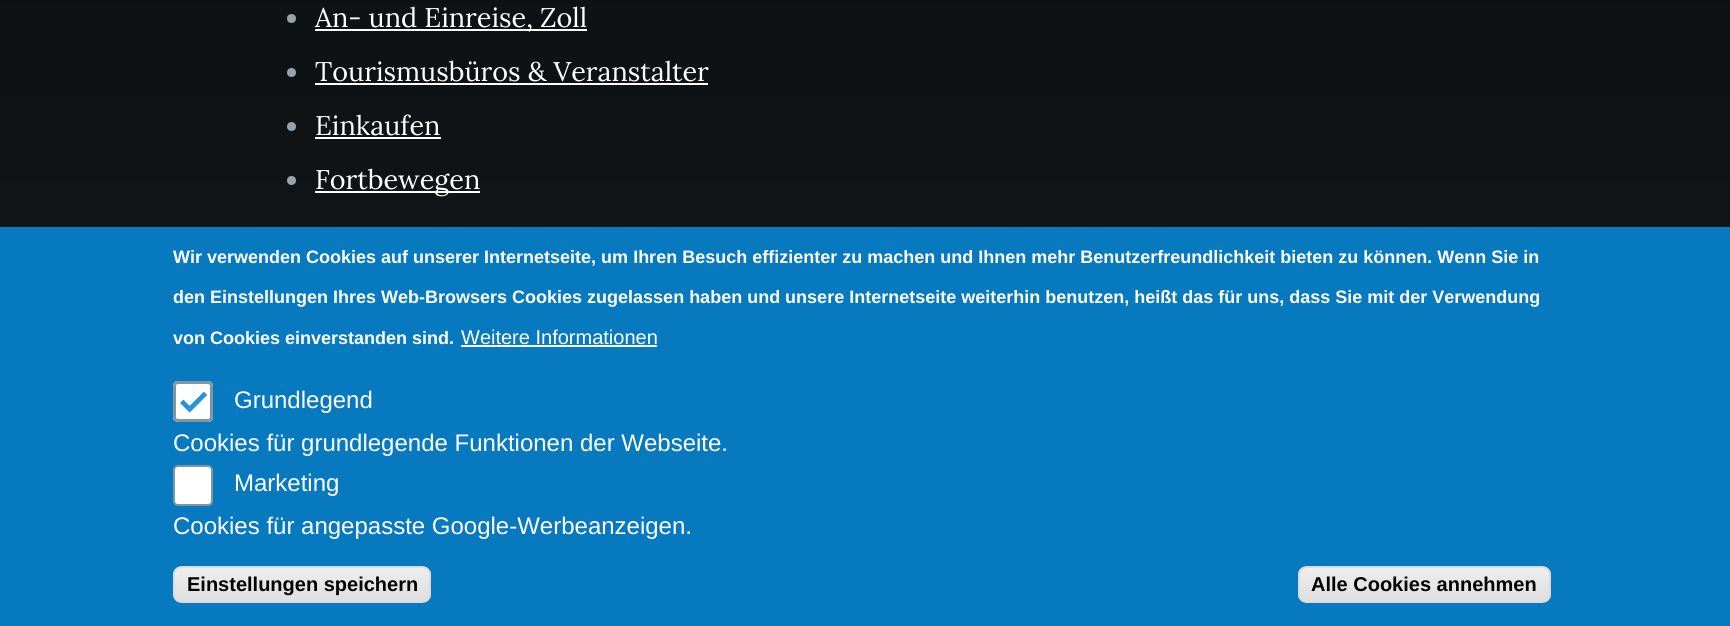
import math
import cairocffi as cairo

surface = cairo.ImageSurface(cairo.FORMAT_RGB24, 1730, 626)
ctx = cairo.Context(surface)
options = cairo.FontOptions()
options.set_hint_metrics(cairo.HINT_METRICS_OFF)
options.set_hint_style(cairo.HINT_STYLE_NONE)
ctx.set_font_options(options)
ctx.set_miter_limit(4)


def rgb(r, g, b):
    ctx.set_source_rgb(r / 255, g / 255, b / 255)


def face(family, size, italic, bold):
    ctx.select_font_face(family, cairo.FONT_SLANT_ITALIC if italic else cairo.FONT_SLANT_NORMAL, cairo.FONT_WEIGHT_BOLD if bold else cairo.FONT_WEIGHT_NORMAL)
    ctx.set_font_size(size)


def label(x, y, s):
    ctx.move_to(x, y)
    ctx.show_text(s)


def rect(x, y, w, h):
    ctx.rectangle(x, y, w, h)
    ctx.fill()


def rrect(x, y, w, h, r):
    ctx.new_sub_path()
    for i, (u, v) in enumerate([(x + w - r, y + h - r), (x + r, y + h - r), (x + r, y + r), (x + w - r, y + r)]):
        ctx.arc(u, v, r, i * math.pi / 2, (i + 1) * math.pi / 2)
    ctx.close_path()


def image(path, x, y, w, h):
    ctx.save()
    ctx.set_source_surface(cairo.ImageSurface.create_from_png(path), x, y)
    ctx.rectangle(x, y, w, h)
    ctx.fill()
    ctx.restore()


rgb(255, 255, 255)
ctx.paint()
gradient = cairo.LinearGradient(866, -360, 866, 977)
gradient.add_color_stop_rgba(0, 0.043, 0.051, 0.059, 1)
gradient.add_color_stop_rgba(1, 0.094, 0.114, 0.125, 1)
ctx.set_source(gradient)
rect(0, 0, 1730, 227)
rgb(146, 165, 175)
ctx.arc(291.5, 18.5, 4.5, 0, 2 * math.pi)
ctx.fill()
rgb(255, 255, 255)
rect(315, 29, 272, 2)
face('Lora', 27, 0, 0)
label(315, 27, 'An- und Einreise, Zoll')
rgb(146, 165, 175)
ctx.new_path()
ctx.arc(291.5, 72.5, 4.5, 0, 2 * math.pi)
ctx.fill()
rgb(255, 255, 255)
label(315, 81, 'Tourismusbüros & Veranstalter')
rect(315, 83, 393, 2)
rgb(146, 165, 175)
ctx.new_path()
ctx.arc(291.5, 126.5, 4.5, 0, 2 * math.pi)
ctx.fill()
rgb(255, 255, 255)
label(315, 135, 'Einkaufen')
rect(315, 137, 126, 2)
rgb(146, 165, 175)
ctx.new_path()
ctx.arc(291.5, 180.5, 4.5, 0, 2 * math.pi)
ctx.fill()
rgb(255, 255, 255)
rect(315, 191, 165, 2)
label(315, 189, 'Fortbewegen')
rgb(7, 121, 191)
rect(0, 227, 1730, 399)
face('Liberation Sans', 18, 0, 1)
rgb(255, 255, 255)
label(173, 263, 'Wir verwenden Cookies auf unserer Internetseite, um Ihren Besuch effizienter zu machen und Ihnen mehr Benutzerfreundlichkeit bieten zu können. Wenn Sie in')
label(173, 303, 'den Einstellungen Ihres Web-Browsers Cookies zugelassen haben und unsere Internetseite weiterhin benutzen, heißt das für uns, dass Sie mit der Verwendung')
label(173, 344, 'von Cookies einverstanden sind.')
face('Liberation Sans', 20, 0, 0)
label(461, 344, 'Weitere Informationen')
rect(461, 345, 196, 2)
rrect(173, 381, 40, 41, 5)
ctx.fill()
image('image0.png', 180, 391, 27, 22)
rrect(174.5, 382.5, 37, 38, 3.5)
rgb(129, 150, 162)
ctx.set_line_width(3)
ctx.stroke()
face('Liberation Sans', 24, 0, 0)
rgb(255, 255, 255)
label(234, 408, 'Grundlegend')
label(173, 451, 'Cookies für grundlegende Funktionen der Webseite.')
rrect(174, 466, 38, 39, 4)
ctx.fill_preserve()
rgb(129, 150, 162)
ctx.set_line_width(2)
ctx.stroke()
rgb(255, 255, 255)
label(234, 491, 'Marketing')
label(173, 534, 'Cookies für angepasste Google-Werbeanzeigen.')
ctx.save()
rrect(173, 566, 258, 37, 9)
ctx.clip()
gradient = cairo.LinearGradient(302, 567, 302, 602)
gradient.add_color_stop_rgba(0.05, 0.929, 0.929, 0.929, 1)
gradient.add_color_stop_rgba(1, 0.875, 0.875, 0.875, 1)
ctx.set_source(gradient)
rect(173, 567, 258, 35)
ctx.restore()
ctx.new_path()
ctx.move_to(182, 568)
ctx.line_to(422, 568)
ctx.curve_to(426, 568, 429, 572, 429, 576)
ctx.curve_to(429, 572, 427, 568, 423, 567)
ctx.line_to(182, 567)
ctx.curve_to(177, 567, 174, 571, 174, 576)
ctx.curve_to(174, 572, 177, 568, 182, 568)
ctx.close_path()
ctx.fill()
rrect(174, 567, 256, 35, 8)
rgb(220, 220, 220)
ctx.stroke()
face('Liberation Sans', 20, 0, 1)
rgb(0, 0, 0)
label(187, 591, 'Einstellungen speichern')
ctx.save()
rrect(1298, 566, 253, 37, 9)
ctx.clip()
gradient = cairo.LinearGradient(1424, 567, 1424, 602)
gradient.add_color_stop_rgba(0.05, 0.929, 0.929, 0.929, 1)
gradient.add_color_stop_rgba(1, 0.875, 0.875, 0.875, 1)
ctx.set_source(gradient)
rect(1298, 567, 253, 35)
ctx.restore()
rrect(1299, 567, 251, 35, 8)
rgb(220, 220, 220)
ctx.stroke()
rgb(0, 0, 0)
label(1311, 591, 'Alle Cookies annehmen')
surface.write_to_png('render.png')
